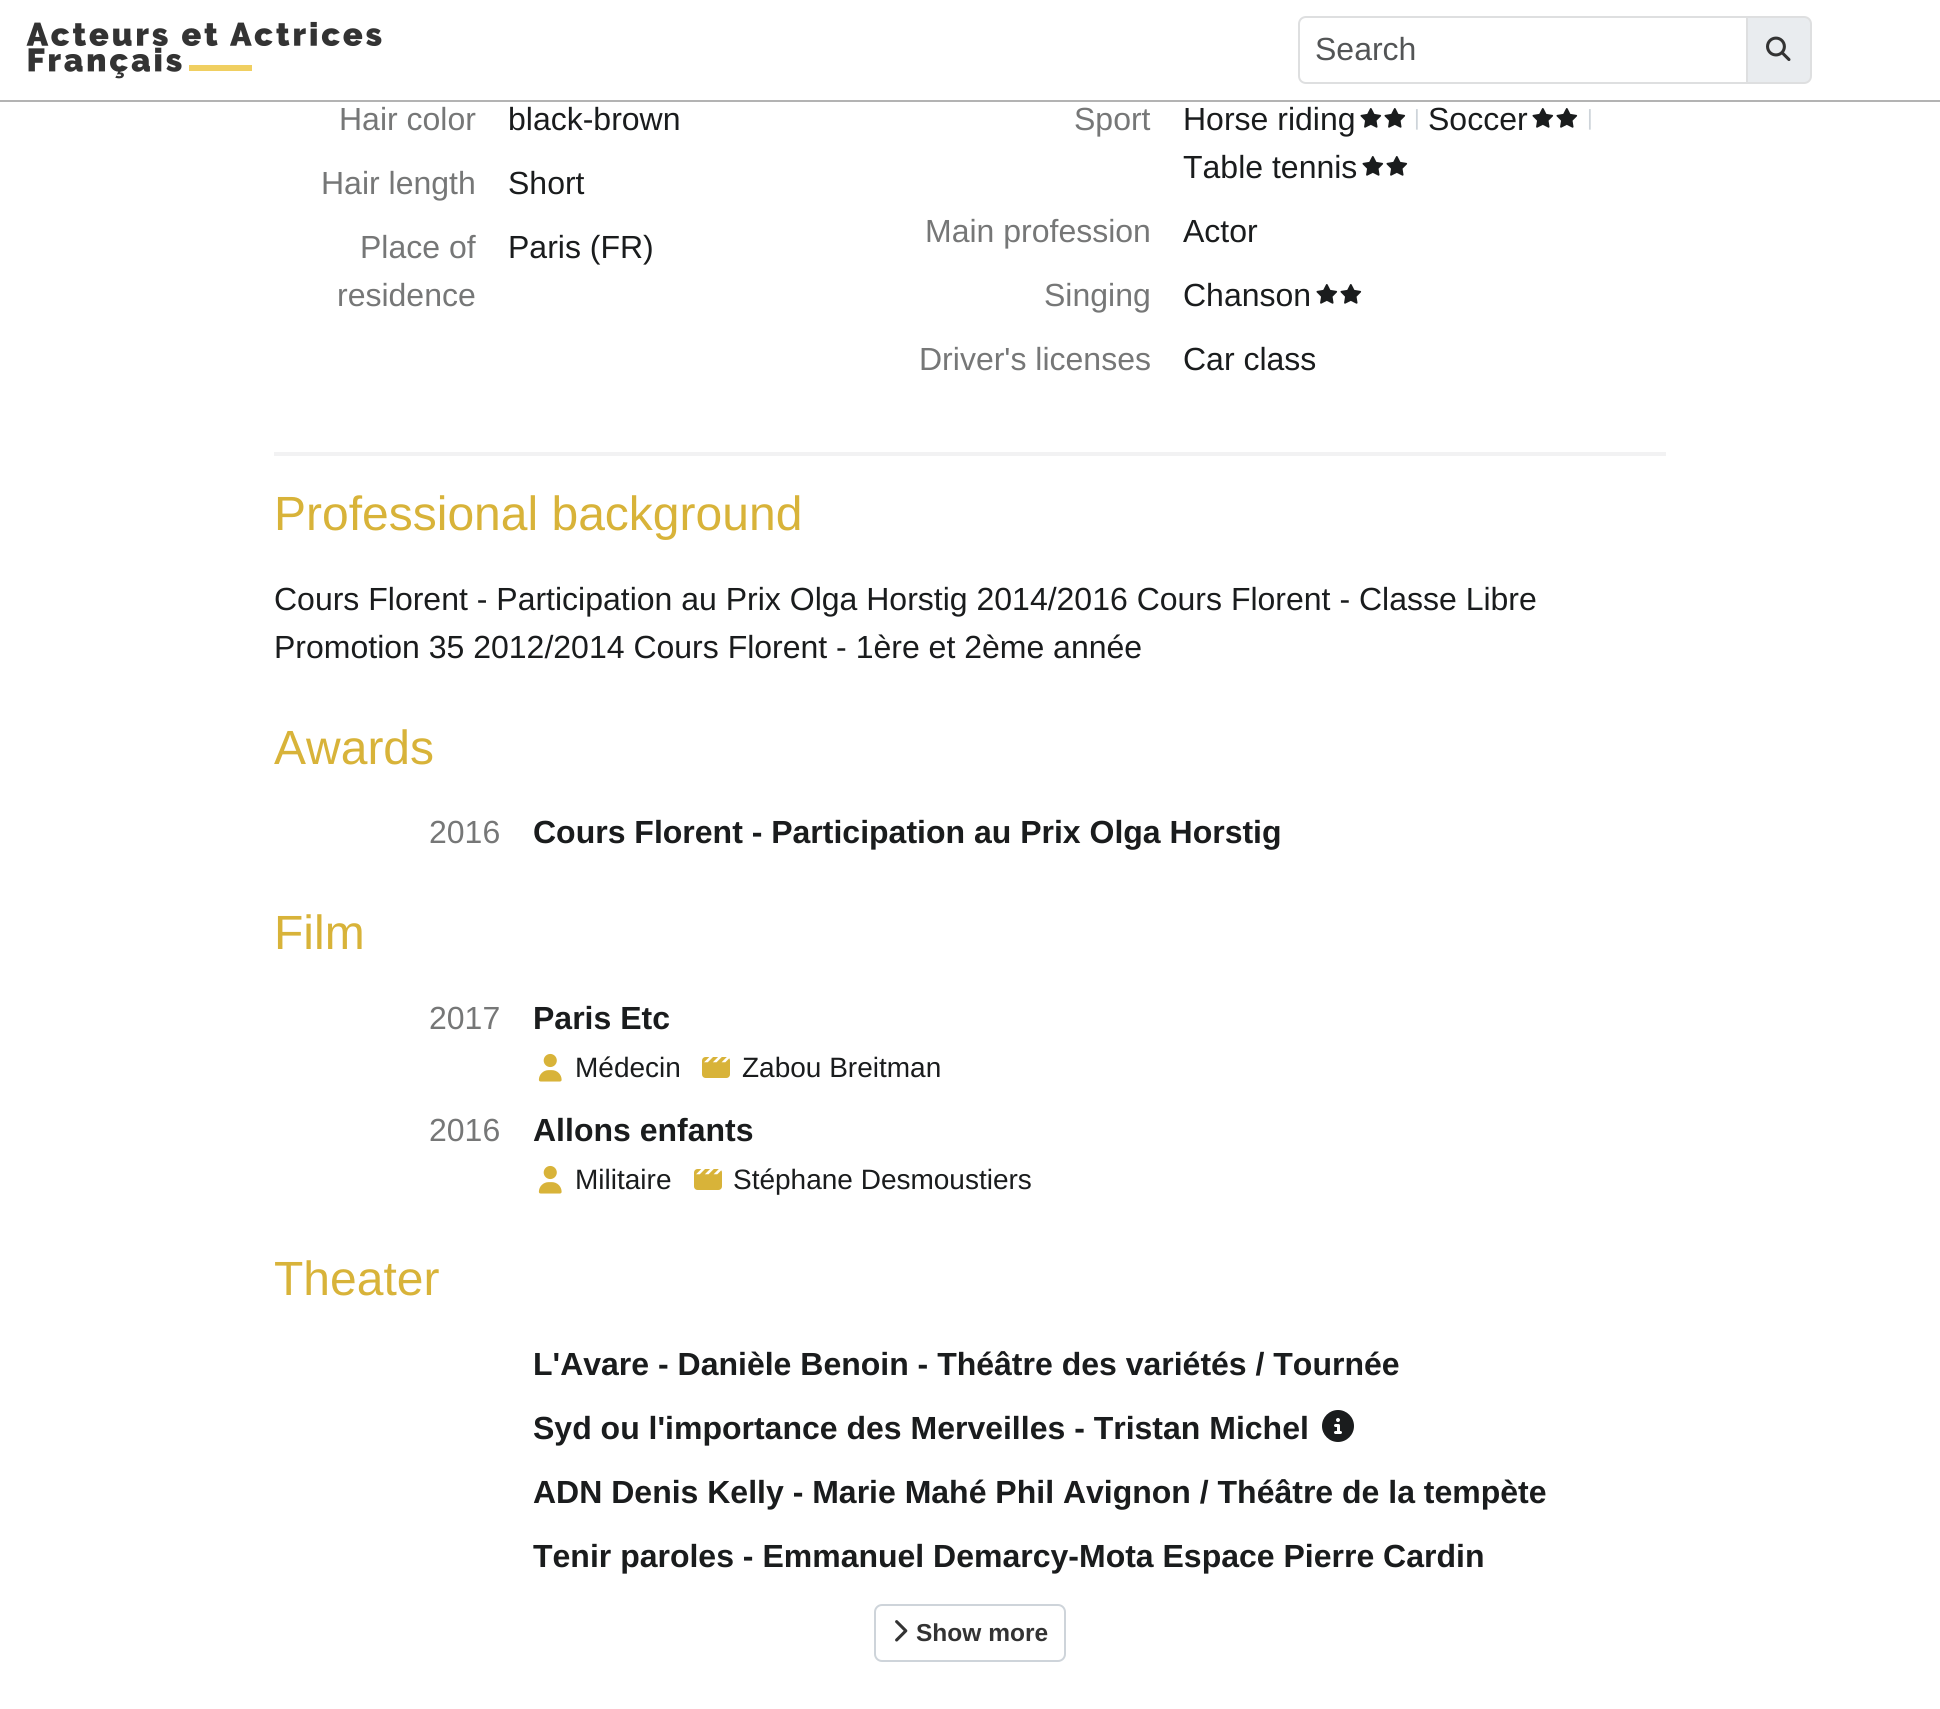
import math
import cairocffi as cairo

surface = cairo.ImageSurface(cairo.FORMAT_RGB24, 1940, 1709)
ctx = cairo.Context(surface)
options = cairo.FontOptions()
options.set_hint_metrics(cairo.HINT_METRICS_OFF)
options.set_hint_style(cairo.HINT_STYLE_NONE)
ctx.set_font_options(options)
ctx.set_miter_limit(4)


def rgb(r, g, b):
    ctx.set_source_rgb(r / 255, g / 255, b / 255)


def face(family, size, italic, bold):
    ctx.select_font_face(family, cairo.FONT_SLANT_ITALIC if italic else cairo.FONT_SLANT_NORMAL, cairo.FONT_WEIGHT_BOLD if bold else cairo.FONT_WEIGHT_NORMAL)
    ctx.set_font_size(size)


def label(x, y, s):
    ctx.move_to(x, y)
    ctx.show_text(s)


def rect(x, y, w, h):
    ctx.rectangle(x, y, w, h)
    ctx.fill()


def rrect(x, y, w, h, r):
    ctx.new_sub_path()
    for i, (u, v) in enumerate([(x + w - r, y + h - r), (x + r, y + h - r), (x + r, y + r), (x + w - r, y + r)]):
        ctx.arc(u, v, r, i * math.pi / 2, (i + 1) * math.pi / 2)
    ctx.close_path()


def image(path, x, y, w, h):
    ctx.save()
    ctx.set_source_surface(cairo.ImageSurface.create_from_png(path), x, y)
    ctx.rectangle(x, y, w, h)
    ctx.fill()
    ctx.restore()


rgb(255, 255, 255)
ctx.paint()
rgb(179, 179, 179)
rect(0, 100, 1940, 2)
image('image0.png', 26, 21, 356, 58)
ctx.new_path()
ctx.move_to(1306, 17)
ctx.line_to(1747, 17)
ctx.line_to(1747, 83)
ctx.line_to(1306, 83)
ctx.curve_to(1302, 83, 1299, 80, 1299, 76)
ctx.line_to(1299, 24)
ctx.curve_to(1299, 20, 1302, 17, 1306, 17)
ctx.close_path()
rgb(222, 223, 224)
ctx.stroke()
face('Liberation Sans', 32, 0, 0)
rgb(83, 85, 86)
label(1315, 60, 'Search')
rgb(233, 236, 239)
ctx.new_path()
ctx.move_to(1747, 17)
ctx.line_to(1804, 17)
ctx.curve_to(1808, 17, 1811, 20, 1811, 24)
ctx.line_to(1811, 76)
ctx.curve_to(1811, 80, 1808, 83, 1804, 83)
ctx.line_to(1747, 83)
ctx.close_path()
ctx.fill_preserve()
rgb(222, 223, 224)
ctx.stroke()
image('image1.png', 1766, 36, 25, 25)
rgb(118, 119, 119)
label(339, 130, 'Hair color')
rgb(26, 28, 29)
label(508, 130, 'black-brown')
rgb(118, 119, 119)
label(321, 194, 'Hair length')
rgb(26, 28, 29)
label(508, 194, 'Short')
rgb(118, 119, 119)
label(360, 258, 'Place of')
label(337, 306, 'residence')
rgb(26, 28, 29)
label(508, 258, 'Paris (FR)')
rgb(118, 119, 119)
label(1074, 130, 'Sport')
rgb(26, 28, 29)
label(1183, 130, 'Horse riding')
image('image2.png', 1360, 108, 22, 20)
image('image2.png', 1384, 108, 22, 20)
face('Liberation Sans', 22, 0, 0)
rgb(206, 212, 218)
label(1414, 125, '|')
face('Liberation Sans', 32, 0, 0)
rgb(26, 28, 29)
label(1428, 130, 'Soccer')
image('image2.png', 1532, 108, 22, 20)
image('image2.png', 1556, 108, 22, 20)
face('Liberation Sans', 22, 0, 0)
rgb(206, 212, 218)
label(1587, 125, '|')
face('Liberation Sans', 32, 0, 0)
rgb(26, 28, 29)
label(1183, 178, 'Table tennis')
image('image2.png', 1362, 156, 22, 20)
image('image2.png', 1386, 156, 22, 20)
rgb(118, 119, 119)
label(925, 242, 'Main profession')
rgb(26, 28, 29)
label(1183, 242, 'Actor')
rgb(118, 119, 119)
label(1044, 306, 'Singing')
rgb(26, 28, 29)
label(1183, 306, 'Chanson')
image('image2.png', 1316, 284, 22, 20)
image('image2.png', 1340, 284, 22, 20)
rgb(118, 119, 119)
label(919, 370, 'Driver\'s licenses')
rgb(26, 28, 29)
label(1183, 370, 'Car class')
rgb(242, 242, 243)
rect(274, 452, 1392, 4)
face('Liberation Sans', 48, 0, 0)
rgb(216, 179, 57)
label(274, 530, 'Professional background')
face('Liberation Sans', 32, 0, 0)
rgb(26, 28, 29)
label(274, 610, 'Cours Florent - Participation au Prix Olga Horstig 2014/2016 Cours Florent - Classe Libre')
label(274, 658, 'Promotion 35 2012/2014 Cours Florent - 1ère et 2ème année')
face('Liberation Sans', 48, 0, 0)
rgb(216, 179, 57)
label(274, 764, 'Awards')
face('Liberation Sans', 32, 0, 0)
rgb(118, 119, 119)
label(429, 843, '2016')
face('Liberation Sans', 32, 0, 1)
rgb(26, 28, 29)
label(533, 843, 'Cours Florent - Participation au Prix Olga Horstig')
face('Liberation Sans', 48, 0, 0)
rgb(216, 179, 57)
label(274, 949, 'Film')
face('Liberation Sans', 32, 0, 0)
rgb(118, 119, 119)
label(429, 1029, '2017')
face('Liberation Sans', 32, 0, 1)
rgb(26, 28, 29)
label(533, 1029, 'Paris Etc')
image('image3.png', 538, 1053, 24, 29)
face('Liberation Sans', 28, 0, 0)
label(575, 1077, 'Médecin')
image('image4.png', 702, 1057, 28, 21)
label(742, 1077, 'Zabou Breitman')
face('Liberation Sans', 32, 0, 0)
rgb(118, 119, 119)
label(429, 1141, '2016')
face('Liberation Sans', 32, 0, 1)
rgb(26, 28, 29)
label(533, 1141, 'Allons enfants')
image('image3.png', 538, 1165, 24, 29)
face('Liberation Sans', 28, 0, 0)
label(575, 1189, 'Militaire')
image('image4.png', 694, 1169, 28, 21)
label(733, 1189, 'Stéphane Desmoustiers')
face('Liberation Sans', 48, 0, 0)
rgb(216, 179, 57)
label(274, 1295, 'Theater')
face('Liberation Sans', 32, 0, 1)
rgb(26, 28, 29)
label(533, 1375, 'L\'Avare - Danièle Benoin - Théâtre des variétés / Tournée')
label(533, 1439, 'Syd ou l\'importance des Merveilles - Tristan Michel')
image('image5.png', 1322, 1410, 32, 32)
label(533, 1503, 'ADN Denis Kelly - Marie Mahé Phil Avignon / Théâtre de la tempète')
label(533, 1567, 'Tenir paroles - Emmanuel Demarcy-Mota Espace Pierre Cardin')
rrect(875, 1605, 190, 56, 7)
rgb(206, 212, 218)
ctx.stroke()
image('image6.png', 895, 1620, 13, 22)
face('Liberation Sans', 24.5, 0, 1)
rgb(51, 51, 51)
label(916, 1641, 'Show more')
surface.write_to_png('render.png')
